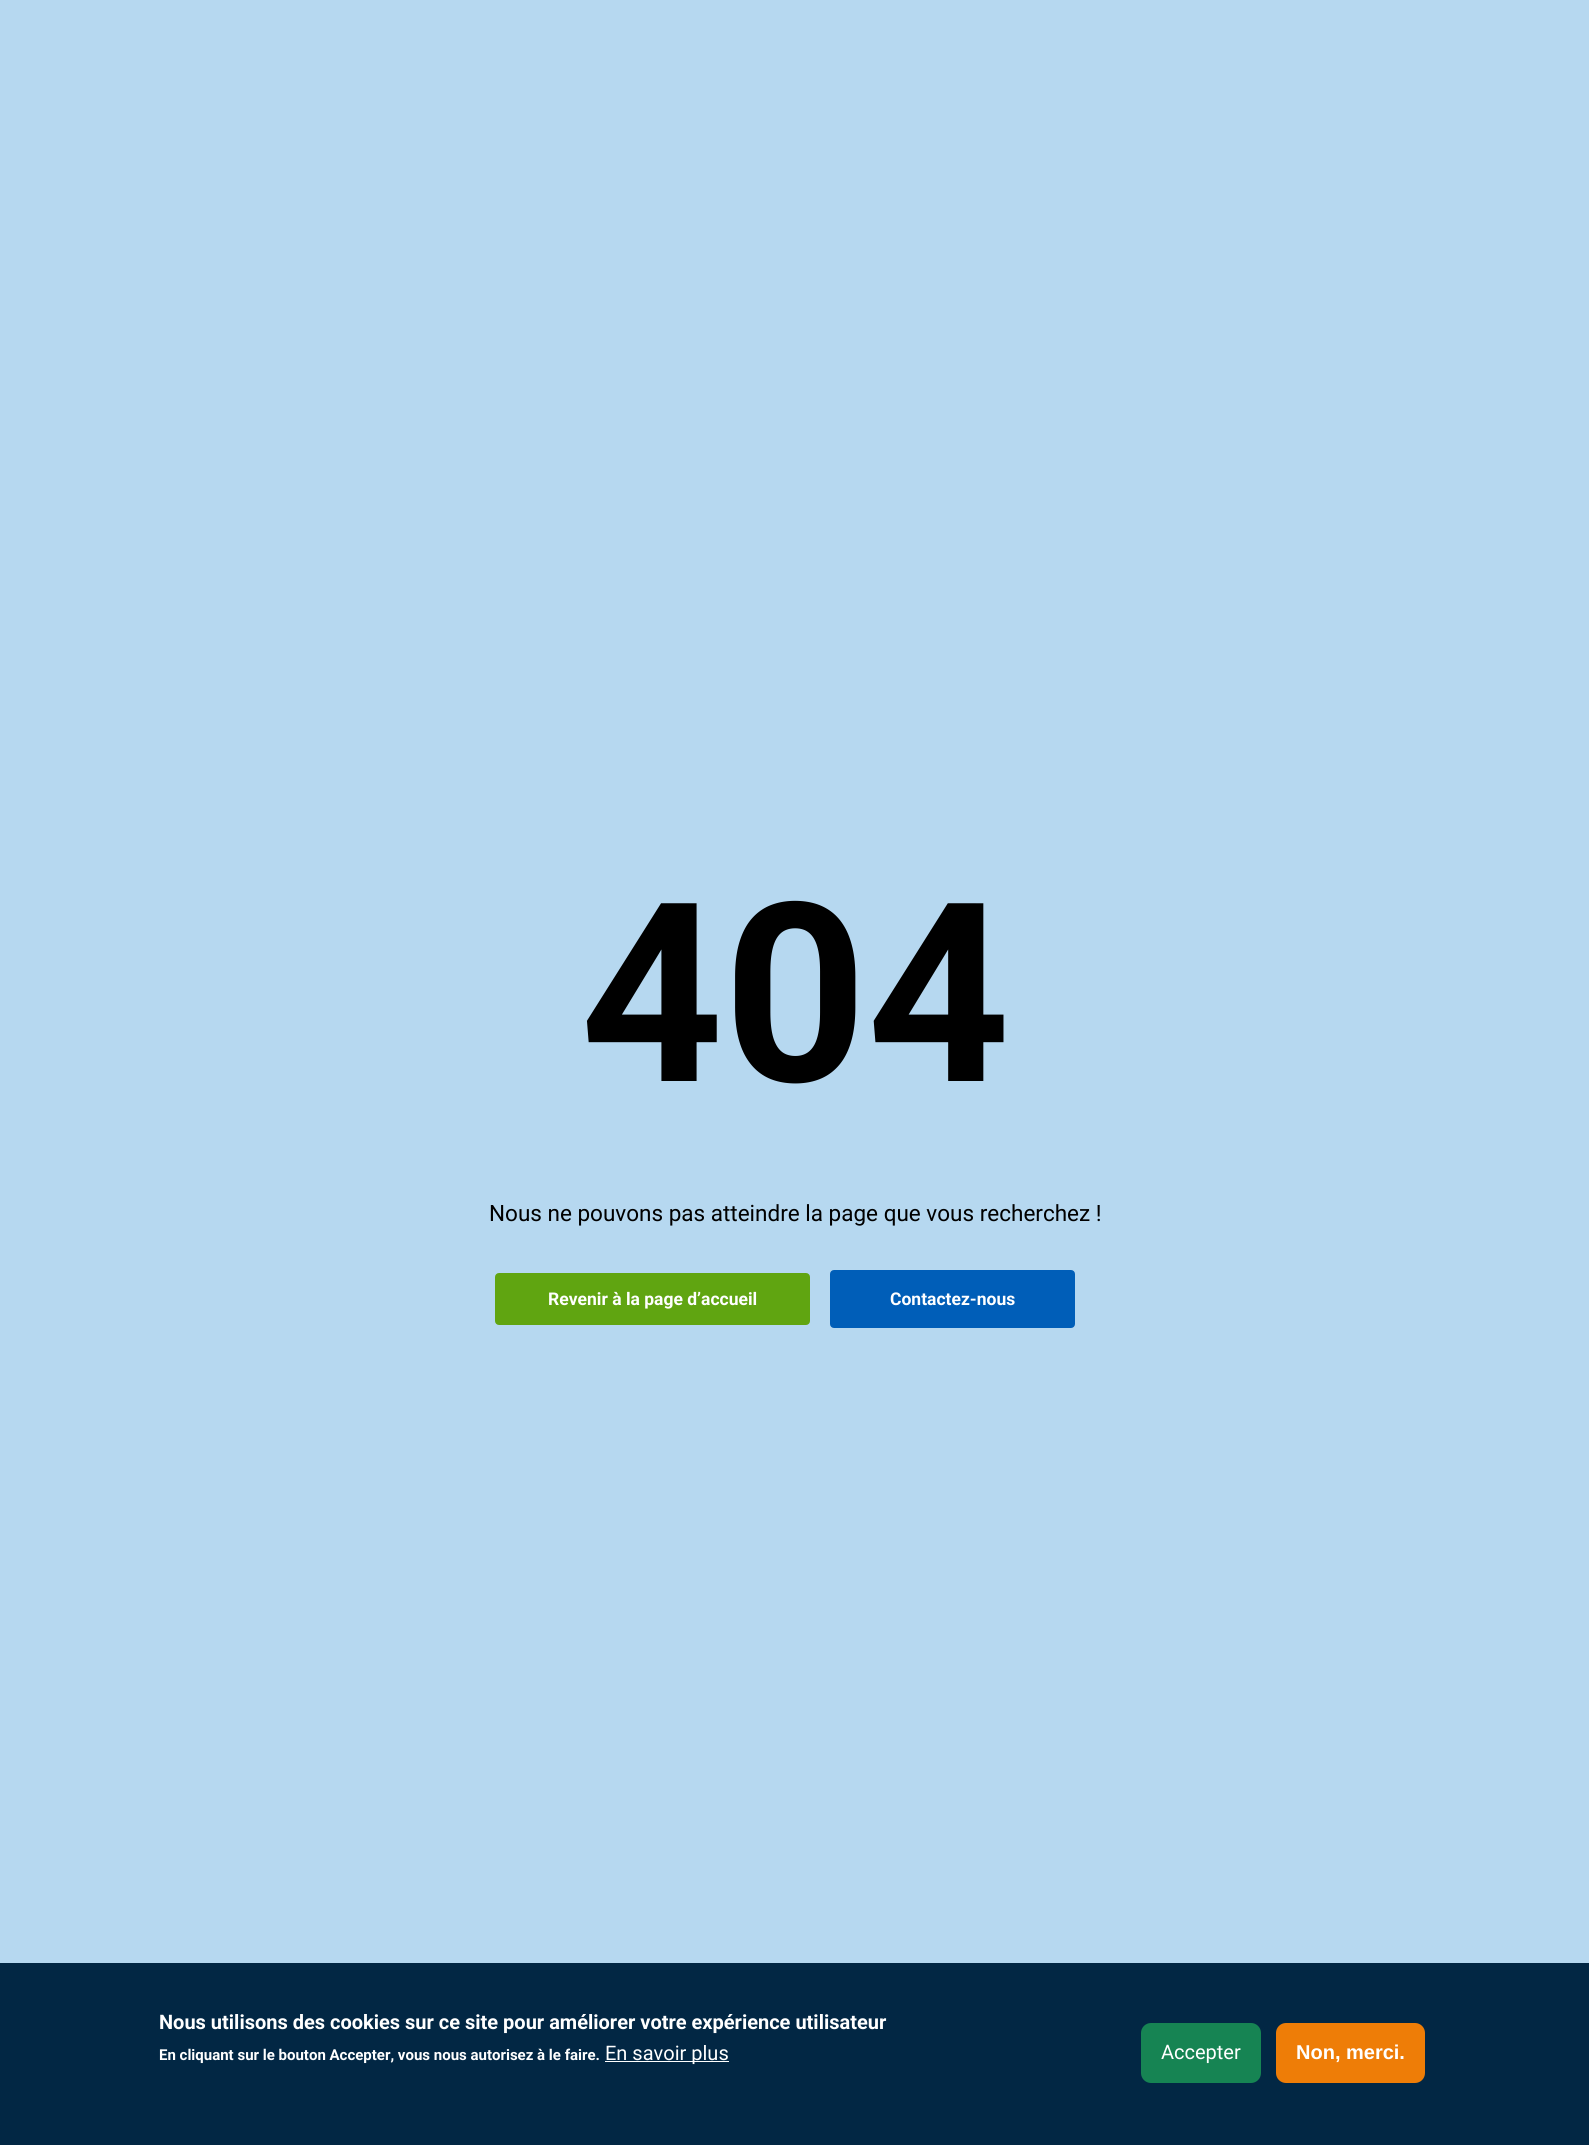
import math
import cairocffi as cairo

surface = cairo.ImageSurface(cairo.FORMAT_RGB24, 1589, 2145)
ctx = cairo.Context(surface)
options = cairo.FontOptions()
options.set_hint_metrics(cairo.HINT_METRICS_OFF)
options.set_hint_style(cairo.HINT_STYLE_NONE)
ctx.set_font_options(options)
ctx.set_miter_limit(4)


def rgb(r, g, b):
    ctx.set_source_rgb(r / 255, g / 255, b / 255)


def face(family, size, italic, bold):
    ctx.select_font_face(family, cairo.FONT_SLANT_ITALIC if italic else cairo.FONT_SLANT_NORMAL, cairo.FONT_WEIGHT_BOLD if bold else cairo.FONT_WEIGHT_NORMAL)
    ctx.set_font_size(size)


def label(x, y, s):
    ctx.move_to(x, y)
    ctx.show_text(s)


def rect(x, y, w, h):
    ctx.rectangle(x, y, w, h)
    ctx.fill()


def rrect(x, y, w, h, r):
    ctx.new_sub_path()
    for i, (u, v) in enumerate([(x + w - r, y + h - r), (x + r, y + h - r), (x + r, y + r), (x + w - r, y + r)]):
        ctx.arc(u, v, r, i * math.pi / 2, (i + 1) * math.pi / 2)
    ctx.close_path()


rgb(182, 216, 240)
ctx.paint()
face('Roboto', 250, 0, 1)
rgb(0, 0, 0)
label(580, 1081, '404')
face('Roboto', 22.5, 0, 0)
label(489, 1221, 'Nous ne pouvons pas atteindre la page que vous recherchez !')
rgb(96, 165, 17)
rrect(496.5, 1274.5, 312, 49, 2.5)
ctx.fill_preserve()
ctx.set_line_width(3)
ctx.stroke()
face('Roboto', 17.5, 0, 1)
rgb(255, 255, 255)
label(548, 1305, 'Revenir à la page d’accueil')
rgb(0, 94, 184)
rrect(831.5, 1271.5, 242, 55, 2.5)
ctx.fill_preserve()
ctx.stroke()
rgb(255, 255, 255)
label(890, 1305, 'Contactez-nous')
rgb(2, 39, 68)
rect(0, 1963, 1589, 182)
face('Roboto', 20, 0, 1)
rgb(255, 255, 255)
label(159, 2029, 'Nous utilisons des cookies sur ce site pour améliorer votre expérience utilisateur')
face('Roboto', 15, 0, 1)
label(159, 2060, 'En cliquant sur le bouton Accepter, vous nous autorisez à le faire.')
rect(605, 2061, 124, 1)
face('Roboto', 20, 0, 0)
label(605, 2060, 'En savoir plus')
rgb(22, 132, 83)
rrect(1141, 2023, 120, 60, 10)
ctx.fill()
rgb(255, 255, 255)
label(1161, 2059, 'Accepter')
rgb(238, 125, 7)
rrect(1276, 2023, 149, 60, 10)
ctx.fill()
face('Liberation Sans', 20, 0, 1)
rgb(255, 255, 255)
label(1296, 2059, 'Non, merci.')
surface.write_to_png('render.png')
